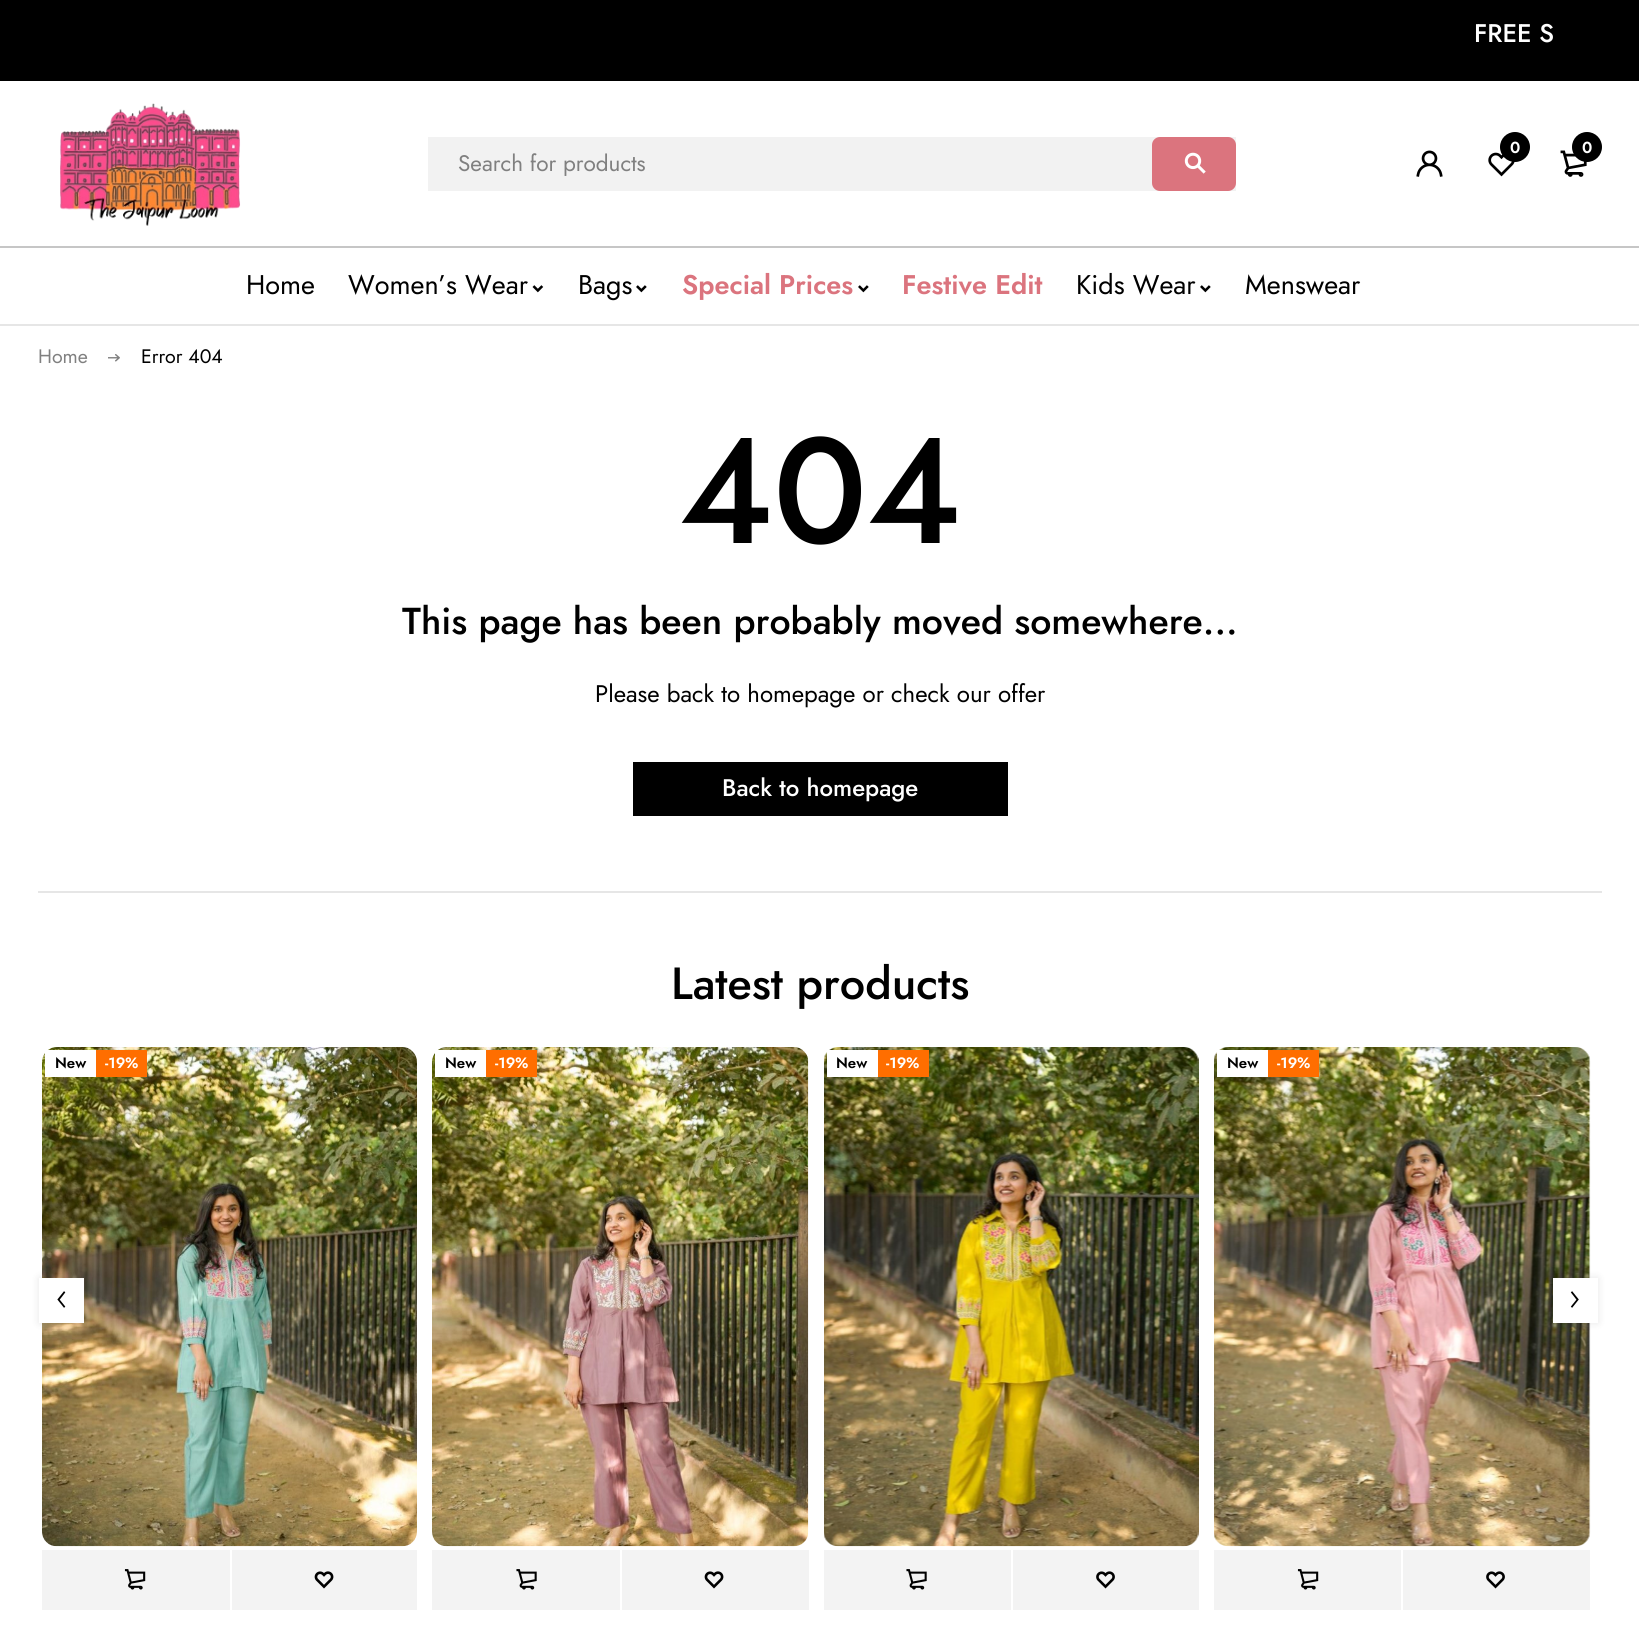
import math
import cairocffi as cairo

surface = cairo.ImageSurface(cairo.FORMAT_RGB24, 1639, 1629)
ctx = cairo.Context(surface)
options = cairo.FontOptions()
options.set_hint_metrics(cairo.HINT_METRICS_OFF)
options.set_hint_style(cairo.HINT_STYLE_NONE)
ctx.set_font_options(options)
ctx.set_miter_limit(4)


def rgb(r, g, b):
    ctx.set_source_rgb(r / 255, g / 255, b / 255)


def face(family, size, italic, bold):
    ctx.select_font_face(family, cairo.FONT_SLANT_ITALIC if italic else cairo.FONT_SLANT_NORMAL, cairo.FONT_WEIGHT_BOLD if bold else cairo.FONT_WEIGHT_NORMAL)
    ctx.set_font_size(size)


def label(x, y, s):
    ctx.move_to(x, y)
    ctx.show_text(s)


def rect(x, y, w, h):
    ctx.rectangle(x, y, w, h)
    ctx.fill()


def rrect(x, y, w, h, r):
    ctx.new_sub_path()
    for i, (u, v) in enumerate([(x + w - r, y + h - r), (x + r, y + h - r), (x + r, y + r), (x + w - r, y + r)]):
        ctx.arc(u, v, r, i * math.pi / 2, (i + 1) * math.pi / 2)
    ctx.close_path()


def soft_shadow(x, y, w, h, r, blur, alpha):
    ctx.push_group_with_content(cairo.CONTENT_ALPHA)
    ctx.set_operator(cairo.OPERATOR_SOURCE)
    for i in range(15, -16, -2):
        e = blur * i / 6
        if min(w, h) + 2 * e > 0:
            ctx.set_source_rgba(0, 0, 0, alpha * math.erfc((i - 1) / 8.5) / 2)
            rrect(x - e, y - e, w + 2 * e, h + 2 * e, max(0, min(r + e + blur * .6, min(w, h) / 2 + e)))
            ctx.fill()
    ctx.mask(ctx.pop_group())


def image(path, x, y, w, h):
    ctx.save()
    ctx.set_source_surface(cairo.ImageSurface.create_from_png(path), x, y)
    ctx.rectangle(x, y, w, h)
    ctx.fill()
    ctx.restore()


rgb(255, 255, 255)
ctx.paint()
rgb(0, 0, 0)
rect(0, 0, 1639, 81)
face('Jost Medium', 25.5, 0, 0)
rgb(255, 255, 255)
label(1474, 42, 'FREE S')
image('image0.png', 60, 103, 181, 123)
image('image1.png', 1488, 152, 27, 25)
rgb(0, 0, 0)
ctx.arc(1515, 147, 15, 0, 2 * math.pi)
ctx.fill()
face('Jost SemiBold', 16, 0, 0)
rgb(255, 255, 255)
label(1510, 153, '0')
image('image2.png', 1560, 150, 27, 27)
rgb(0, 0, 0)
ctx.arc(1587, 147, 15, 0, 2 * math.pi)
ctx.fill()
rgb(255, 255, 255)
label(1582, 153, '0')
image('image3.png', 1416, 150, 27, 27)
rgb(242, 242, 242)
rect(428, 137, 808, 54)
face('Jost', 22.5, 0, 0)
rgb(128, 128, 128)
label(458, 171, 'Search for products')
rgb(219, 116, 126)
rrect(1152, 137, 84, 54, 8)
ctx.fill()
image('image4.png', 1184, 152, 22, 22)
rgb(198, 198, 198)
rect(0, 246, 1639, 2)
face('Jost', 27, 0, 0)
rgb(0, 0, 0)
label(246, 294, 'Home')
label(348, 294, 'Women’s Wear')
image('image5.png', 532, 285, 12, 8)
label(578, 294, 'Bags')
image('image6.png', 636, 285, 11, 8)
face('Jost SemiBold', 27, 0, 0)
rgb(219, 116, 126)
label(682, 294, 'Special Prices')
image('image6.png', 858, 285, 11, 8)
label(902, 294, 'Festive Edit')
face('Jost', 27, 0, 0)
rgb(0, 0, 0)
label(1076, 294, 'Kids Wear')
image('image6.png', 1200, 285, 11, 8)
label(1245, 294, 'Menswear')
rgb(230, 230, 230)
rect(0, 324, 1639, 2)
face('Jost', 19.5, 0, 0)
rgb(128, 128, 128)
label(38, 363, 'Home')
image('image7.png', 108, 354, 12, 8)
rgb(0, 0, 0)
label(141, 363, 'Error 404')
face('Jost Medium', 150, 0, 0)
label(679, 543, '404')
face('Jost Medium', 37.5, 0, 0)
label(402, 634, 'This page has been probably moved somewhere...')
face('Jost', 24, 0, 0)
label(595, 702, 'Please back to homepage or check our offer')
rect(633, 762, 375, 54)
face('Jost Medium', 24, 0, 0)
rgb(255, 255, 255)
label(722, 796, 'Back to homepage')
rgb(230, 230, 230)
rect(38, 891, 1564, 2)
face('Jost Medium', 45, 0, 0)
rgb(0, 0, 0)
label(671, 999, 'Latest products')
image('image8.png', 42, 1047, 375, 500)
rgb(255, 255, 255)
rect(45, 1050, 51, 27)
face('Jost SemiBold', 15, 0, 0)
rgb(0, 0, 0)
label(55, 1068, 'New')
rgb(255, 110, 0)
rect(96, 1050, 51, 27)
rgb(255, 255, 255)
label(105, 1068, '-19%')
rgb(243, 243, 243)
rect(42, 1550, 375, 60)
rgb(255, 255, 255)
rect(230, 1550, 2, 60)
image('image9.png', 124, 1569, 22, 21)
image('image10.png', 314, 1571, 20, 18)
image('image11.png', 432, 1047, 377, 500)
rect(435, 1050, 51, 27)
rgb(0, 0, 0)
label(445, 1068, 'New')
rgb(255, 110, 0)
rect(486, 1050, 51, 27)
rgb(255, 255, 255)
label(495, 1068, '-19%')
rgb(243, 243, 243)
rect(432, 1550, 377, 60)
rgb(255, 255, 255)
rect(620, 1550, 2, 60)
image('image12.png', 516, 1569, 21, 21)
image('image10.png', 704, 1571, 20, 18)
image('image13.png', 824, 1047, 375, 500)
rect(827, 1050, 51, 27)
rgb(0, 0, 0)
label(836, 1068, 'New')
rgb(255, 110, 0)
rect(878, 1050, 51, 27)
rgb(255, 255, 255)
label(886, 1068, '-19%')
rgb(243, 243, 243)
rect(824, 1550, 375, 60)
rgb(255, 255, 255)
rect(1011, 1550, 2, 60)
image('image12.png', 906, 1569, 21, 21)
image('image14.png', 1096, 1571, 19, 18)
image('image15.png', 1214, 1047, 377, 500)
rect(1217, 1050, 51, 27)
rgb(0, 0, 0)
label(1227, 1068, 'New')
rgb(255, 110, 0)
rect(1268, 1050, 51, 27)
rgb(255, 255, 255)
label(1277, 1068, '-19%')
rgb(243, 243, 243)
rect(1214, 1550, 376, 60)
rgb(255, 255, 255)
rect(1401, 1550, 2, 60)
image('image9.png', 1297, 1569, 22, 21)
image('image14.png', 1486, 1571, 19, 18)
rgb(0, 0, 0)
soft_shadow(39, 1278, 45, 45, 0, 4, 0.1)
rgb(255, 255, 255)
rect(39, 1278, 45, 45)
image('image16.png', 57, 1291, 9, 17)
rgb(0, 0, 0)
soft_shadow(1553, 1278, 45, 45, 0, 4, 0.1)
rgb(255, 255, 255)
rect(1553, 1278, 45, 45)
image('image17.png', 1570, 1291, 9, 17)
surface.write_to_png('render.png')
